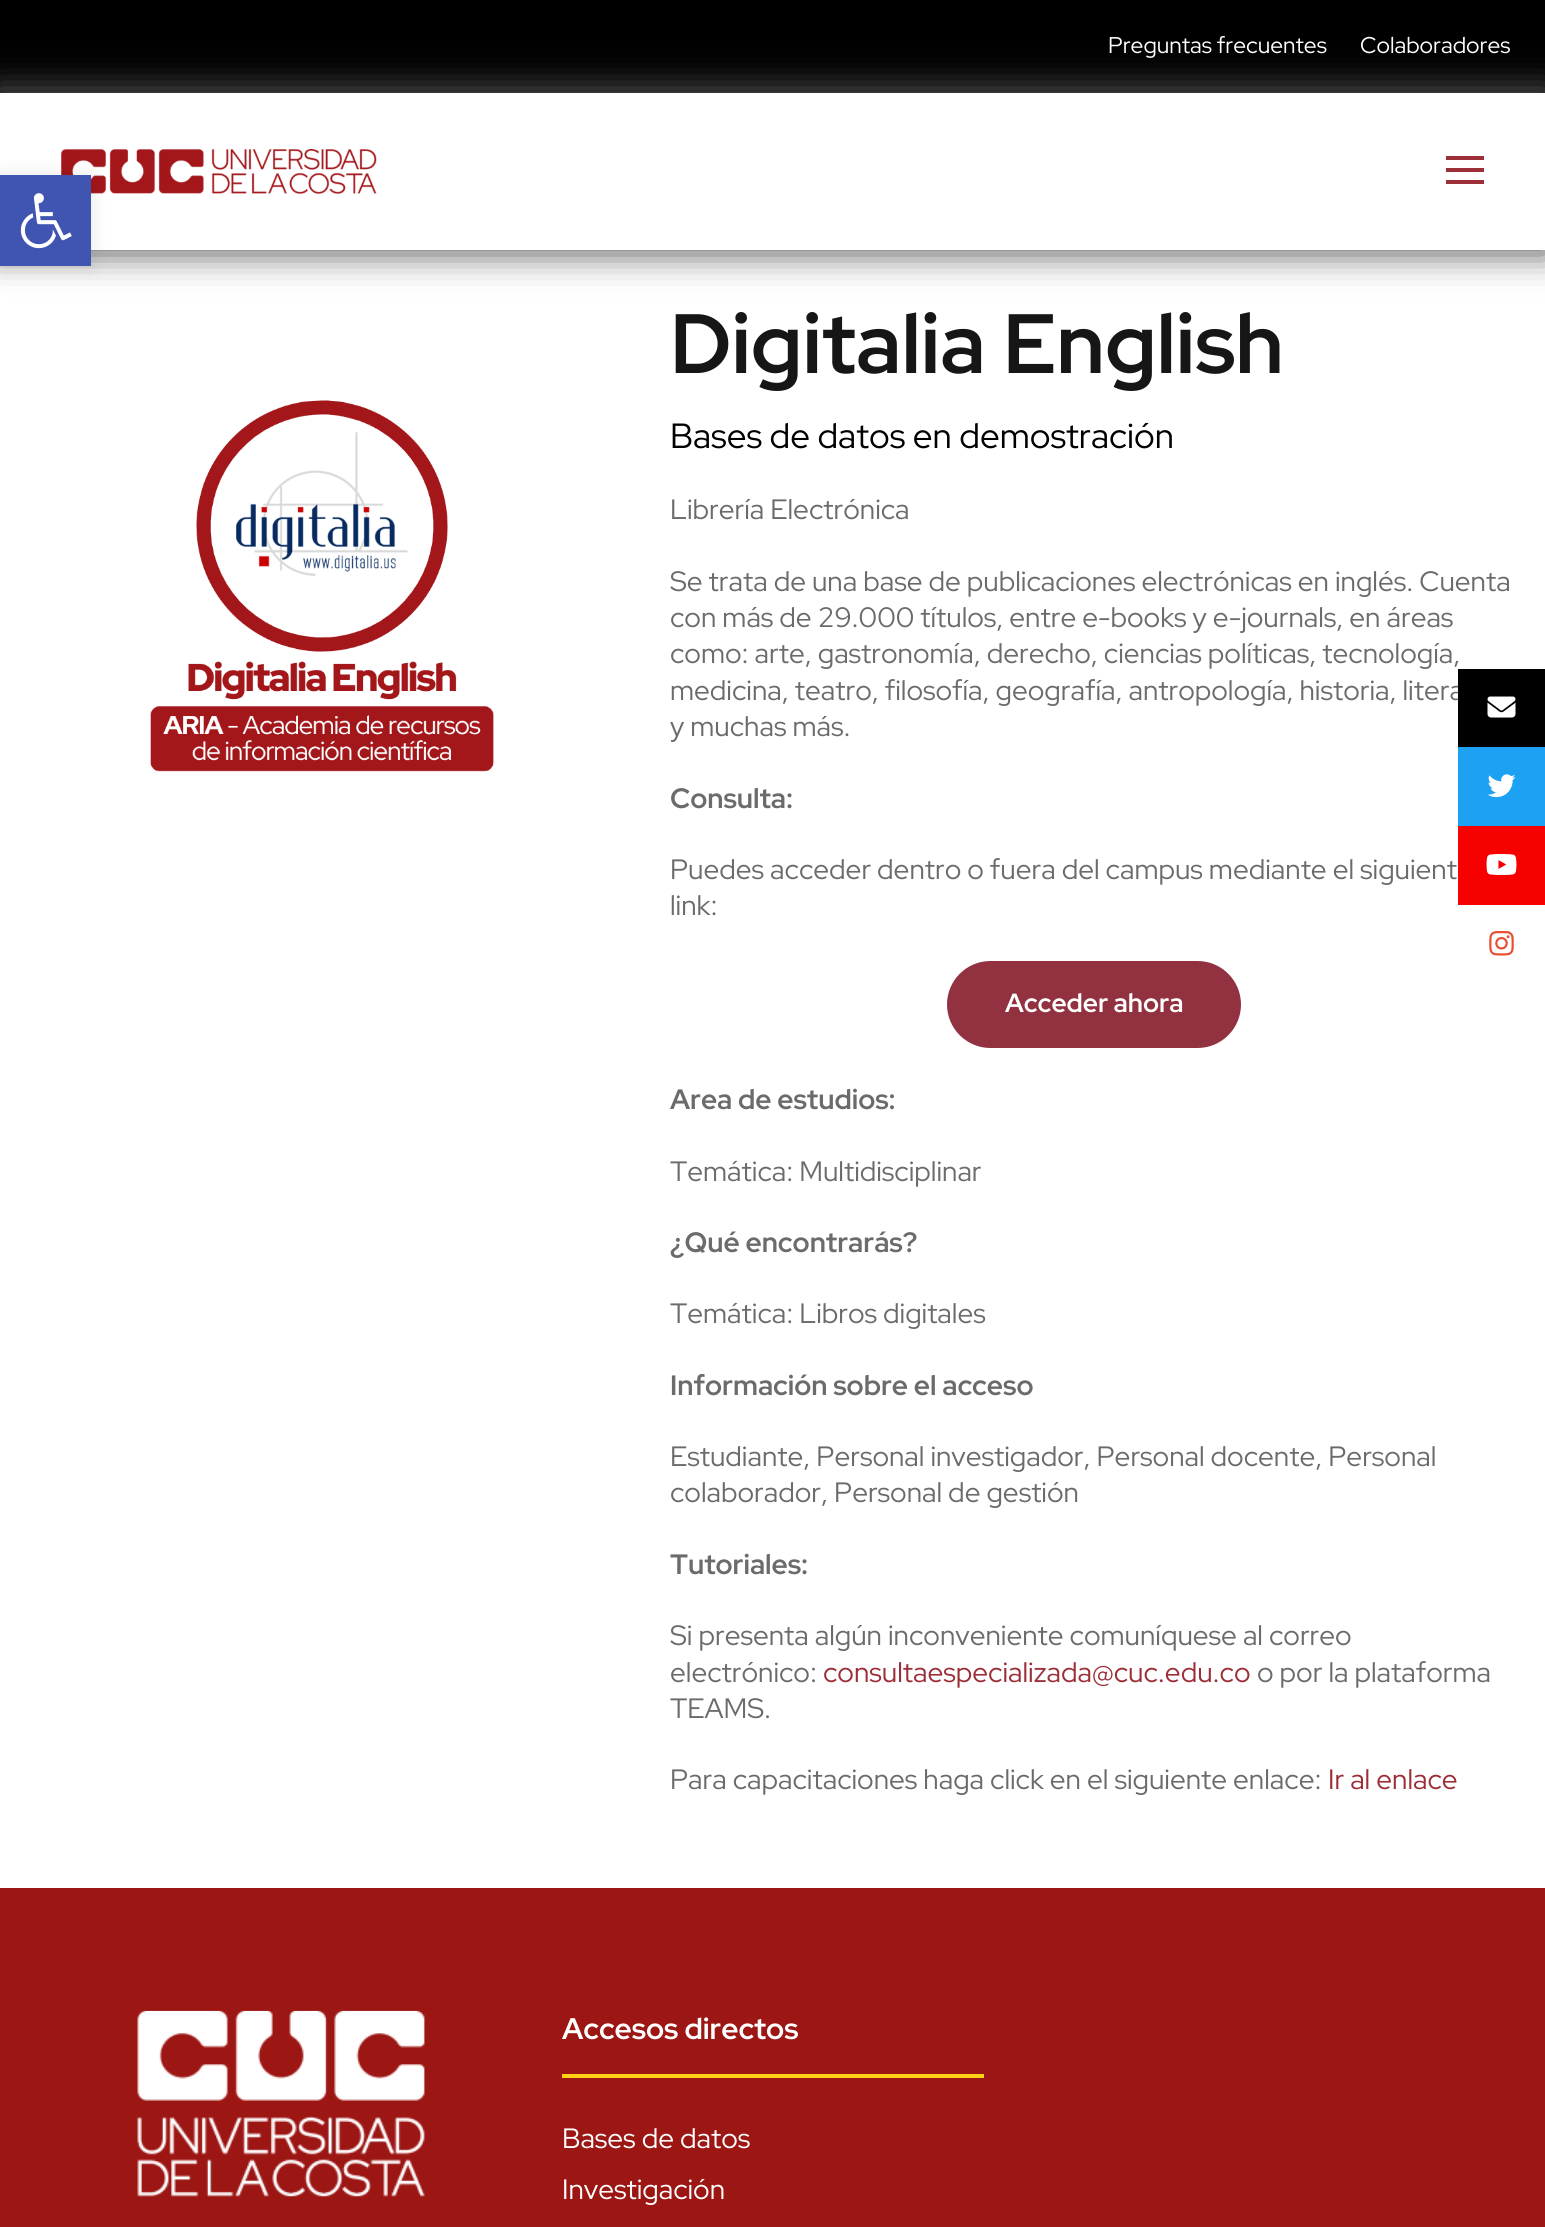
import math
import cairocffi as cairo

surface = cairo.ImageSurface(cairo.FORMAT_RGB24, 1545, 2227)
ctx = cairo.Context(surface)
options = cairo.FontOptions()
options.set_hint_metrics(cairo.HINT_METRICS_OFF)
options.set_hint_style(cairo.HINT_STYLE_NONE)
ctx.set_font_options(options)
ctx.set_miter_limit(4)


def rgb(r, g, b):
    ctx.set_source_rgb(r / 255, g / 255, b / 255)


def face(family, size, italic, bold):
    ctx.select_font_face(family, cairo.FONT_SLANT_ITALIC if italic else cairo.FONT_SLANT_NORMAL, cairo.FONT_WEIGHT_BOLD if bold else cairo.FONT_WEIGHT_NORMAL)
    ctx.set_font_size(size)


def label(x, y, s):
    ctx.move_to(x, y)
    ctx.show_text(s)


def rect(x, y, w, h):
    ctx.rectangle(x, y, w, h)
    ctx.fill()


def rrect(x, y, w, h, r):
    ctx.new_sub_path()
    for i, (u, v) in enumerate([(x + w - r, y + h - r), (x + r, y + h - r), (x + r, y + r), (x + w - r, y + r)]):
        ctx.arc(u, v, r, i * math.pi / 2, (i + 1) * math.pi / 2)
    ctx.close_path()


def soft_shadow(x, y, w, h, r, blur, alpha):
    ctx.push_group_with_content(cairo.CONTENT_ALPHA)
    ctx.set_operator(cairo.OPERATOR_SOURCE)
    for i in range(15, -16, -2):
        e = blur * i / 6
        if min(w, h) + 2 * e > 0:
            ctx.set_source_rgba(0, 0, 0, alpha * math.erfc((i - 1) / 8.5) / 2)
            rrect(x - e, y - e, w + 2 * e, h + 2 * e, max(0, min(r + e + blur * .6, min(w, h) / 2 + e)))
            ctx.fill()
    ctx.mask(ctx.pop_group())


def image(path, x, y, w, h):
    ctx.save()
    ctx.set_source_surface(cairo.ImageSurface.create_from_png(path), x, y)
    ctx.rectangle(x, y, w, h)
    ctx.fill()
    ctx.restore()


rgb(255, 255, 255)
ctx.paint()
rgb(0, 0, 0)
rect(0, 0, 1545, 93)
ctx.save()
ctx.set_fill_rule(cairo.FILL_RULE_EVEN_ODD)
ctx.new_path()
ctx.move_to(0, 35)
ctx.line_to(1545, 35)
ctx.line_to(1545, 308)
ctx.line_to(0, 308)
ctx.close_path()
ctx.move_to(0, 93)
ctx.line_to(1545, 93)
ctx.line_to(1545, 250)
ctx.line_to(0, 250)
ctx.close_path()
ctx.clip()
rgb(90, 90, 90)
soft_shadow(-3, 89, 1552, 165, 0, 17.5, 1)
ctx.restore()
image('image0.png', 61, 149, 316, 45)
rgb(156, 46, 56)
rect(1446, 156, 38, 4)
rect(1446, 168, 38, 4)
rect(1446, 180, 38, 4)
face('Red Hat Display', 22.75, 0, 0)
rgb(255, 255, 255)
label(1108, 53, 'Preguntas frecuentes')
label(1360, 53, 'Colaboradores')
rgb(0, 0, 0)
soft_shadow(0, 175, 91, 91, 0, 9, 0.1)
rgb(64, 84, 178)
rect(0, 175, 91, 91)
image('image1.png', 20, 193, 52, 56)
image('image2.png', 150, 400, 344, 372)
face('Red Hat Display', 84, 0, 1)
rgb(22, 22, 22)
label(670, 373, 'Digitalia English')
face('Red Hat Display', 35, 0, 0)
rgb(0, 0, 0)
label(670, 448, 'Bases de datos en demostración')
face('Red Hat Display', 28, 0, 0)
rgb(107, 107, 107)
label(670, 519, 'Librería Electrónica')
label(670, 591, 'Se trata de una base de publicaciones electrónicas en inglés. Cuenta')
label(670, 627, 'con más de 29.000 títulos, entre e-books y e-journals, en áreas')
label(670, 663, 'como: arte, gastronomía, derecho, ciencias políticas, tecnología,')
label(670, 700, 'medicina, teatro, filosofía, geografía, antropología, historia, litera')
label(670, 736, 'y muchas más.')
face('Red Hat Display', 28, 0, 1)
label(670, 808, 'Consulta:')
face('Red Hat Display', 28, 0, 0)
label(670, 879, 'Puedes acceder dentro o fuera del campus mediante el siguient')
label(670, 915, 'link:')
rgb(146, 49, 63)
rrect(947, 961, 294, 87, 43.5)
ctx.fill()
face('Red Hat Display', 26.25, 0, 1)
rgb(255, 255, 255)
label(1005, 1012, 'Acceder ahora')
face('Red Hat Display', 28, 0, 1)
rgb(107, 107, 107)
label(670, 1109, 'Area de estudios:')
face('Red Hat Display', 28, 0, 0)
label(670, 1181, 'Temática: Multidisciplinar')
face('Red Hat Display', 28, 0, 1)
label(670, 1252, '¿Qué encontrarás?')
face('Red Hat Display', 28, 0, 0)
label(670, 1323, 'Temática: Libros digitales')
face('Red Hat Display', 28, 0, 1)
label(670, 1395, 'Información sobre el acceso')
face('Red Hat Display', 28, 0, 0)
label(670, 1466, 'Estudiante, Personal investigador, Personal docente, Personal')
label(670, 1502, 'colaborador, Personal de gestión')
face('Red Hat Display', 28, 0, 1)
label(670, 1574, 'Tutoriales:')
face('Red Hat Display', 28, 0, 0)
label(670, 1645, 'Si presenta algún inconveniente comuníquese al correo')
label(670, 1682, 'electrónico:')
rgb(156, 46, 56)
label(823, 1682, 'consultaespecializada@cuc.edu.co')
rgb(107, 107, 107)
label(1257, 1682, 'o por la plataforma')
label(670, 1718, 'TEAMS.')
label(670, 1789, 'Para capacitaciones haga click en el siguiente enlace:')
rgb(156, 46, 56)
label(1328, 1789, 'Ir al enlace')
rgb(156, 22, 20)
rect(0, 1888, 1545, 339)
image('image3.png', 137, 2010, 288, 187)
rgb(252, 209, 22)
rect(562, 2074, 422, 4)
face('Red Hat Display', 29.75, 0, 1)
rgb(255, 255, 255)
label(562, 2039, 'Accesos directos')
face('Red Hat Display', 28, 0, 0)
label(562, 2148, 'Bases de datos')
label(562, 2199, 'Investigación')
rgb(0, 0, 0)
rect(1458, 669, 87, 78)
image('image4.png', 1487, 696, 29, 22)
rgb(29, 161, 242)
rect(1458, 747, 87, 79)
image('image5.png', 1487, 774, 29, 24)
rgb(247, 0, 0)
rect(1458, 826, 87, 79)
image('image6.png', 1486, 854, 31, 21)
image('image7.png', 1489, 931, 25, 25)
surface.write_to_png('render.png')
